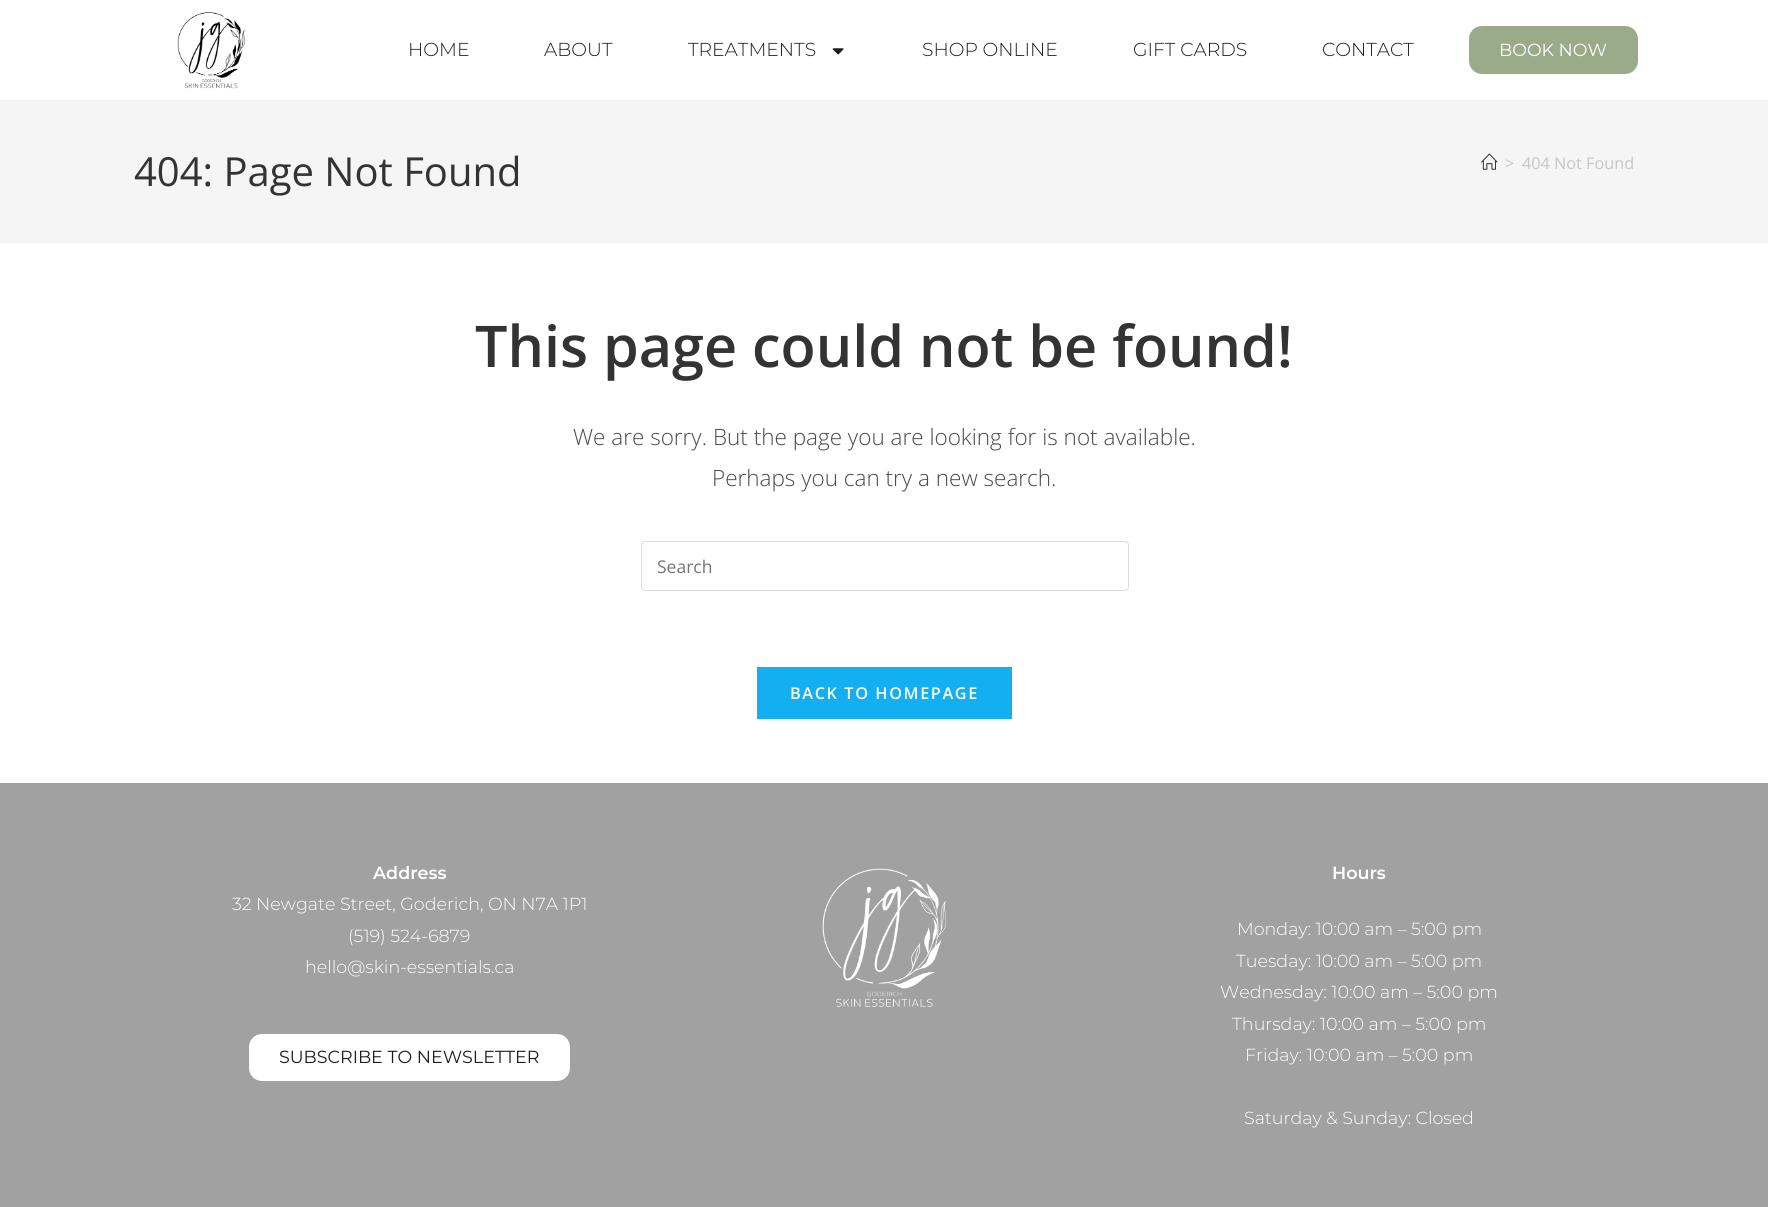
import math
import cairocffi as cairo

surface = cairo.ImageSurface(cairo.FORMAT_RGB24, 1768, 1207)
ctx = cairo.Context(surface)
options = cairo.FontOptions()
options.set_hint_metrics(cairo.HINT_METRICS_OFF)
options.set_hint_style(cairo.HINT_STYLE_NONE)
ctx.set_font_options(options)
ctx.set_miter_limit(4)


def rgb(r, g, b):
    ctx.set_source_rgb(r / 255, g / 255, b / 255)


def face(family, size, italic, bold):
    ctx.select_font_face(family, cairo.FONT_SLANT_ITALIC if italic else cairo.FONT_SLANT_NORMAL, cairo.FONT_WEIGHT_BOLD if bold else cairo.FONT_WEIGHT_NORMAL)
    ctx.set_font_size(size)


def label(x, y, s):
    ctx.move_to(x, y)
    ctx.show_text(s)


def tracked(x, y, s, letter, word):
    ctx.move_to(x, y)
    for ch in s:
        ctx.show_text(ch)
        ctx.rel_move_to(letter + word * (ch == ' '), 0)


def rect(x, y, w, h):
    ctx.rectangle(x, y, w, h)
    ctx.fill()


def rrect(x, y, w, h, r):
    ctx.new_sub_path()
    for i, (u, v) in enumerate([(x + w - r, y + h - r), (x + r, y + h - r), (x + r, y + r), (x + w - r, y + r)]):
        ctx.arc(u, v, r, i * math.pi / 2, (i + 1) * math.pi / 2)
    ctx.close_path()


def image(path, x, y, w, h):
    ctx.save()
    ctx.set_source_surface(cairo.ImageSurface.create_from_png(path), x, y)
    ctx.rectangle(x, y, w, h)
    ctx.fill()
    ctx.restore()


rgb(255, 255, 255)
ctx.paint()
rgb(241, 241, 241)
rect(0, 100, 1768, 1)
image('image0.png', 177, 12, 68, 77)
face('Montserrat Light', 18.75, 0, 0)
rgb(30, 30, 30)
label(408, 56, 'HOME')
label(544, 56, 'ABOUT')
label(688, 56, 'TREATMENTS')
image('image1.png', 832, 48, 12, 7)
label(922, 56, 'SHOP ONLINE')
label(1133, 56, 'GIFT CARDS')
label(1322, 56, 'CONTACT')
rgb(154, 171, 137)
rrect(1469, 26, 169, 48, 13)
ctx.fill()
face('Montserrat', 17.5, 0, 0)
rgb(255, 255, 255)
label(1499, 56, 'BOOK NOW')
rgb(245, 245, 245)
rect(0, 101, 1768, 142)
face('Open Sans', 40, 0, 0)
rgb(51, 51, 51)
label(134, 186, '404: Page Not Found')
image('image2.png', 1481, 153, 17, 17)
face('Open Sans', 16.25, 0, 0)
rgb(198, 198, 198)
label(1505, 169, '>')
label(1522, 169, '404 Not Found')
face('Open Sans SemiBold', 57.5, 0, 0)
rgb(51, 51, 51)
label(475, 367, 'This page could not be found!')
face('Open Sans Light', 22.5, 0, 0)
rgb(74, 74, 74)
label(573, 445, 'We are sorry. But the page you are looking for is not available.')
label(712, 486, 'Perhaps you can try a new search.')
rrect(641.5, 541.5, 487, 49, 3.5)
rgb(221, 221, 221)
ctx.set_line_width(1)
ctx.stroke()
face('Open Sans', 17.5, 0, 0)
rgb(117, 117, 117)
label(657, 573, 'Search')
rgb(19, 175, 240)
rect(757, 667, 255, 52)
face('Open Sans SemiBold', 16.25, 0, 0)
rgb(255, 255, 255)
tracked(790, 699, 'BACK TO HOMEPAGE', 1.6, 0)
rgb(161, 161, 161)
rect(0, 783, 1768, 424)
face('Montserrat SemiBold', 17.5, 0, 0)
rgb(255, 255, 255)
label(373, 879, 'Address')
face('Montserrat Light', 17.5, 0, 0)
label(232, 910, '32 Newgate Street, Goderich, ON N7A 1P1')
label(348, 942, '(519) 524-6879')
label(305, 973, 'hello@skin-essentials.ca')
rrect(249, 1034, 321, 47, 13)
ctx.fill()
face('Montserrat', 17.5, 0, 0)
rgb(30, 30, 30)
label(279, 1063, 'SUBSCRIBE TO NEWSLETTER')
image('image3.png', 822, 868, 125, 139)
face('Montserrat SemiBold', 17.5, 0, 0)
rgb(255, 255, 255)
label(1332, 879, 'Hours')
face('Montserrat Light', 17.5, 0, 0)
label(1237, 935, 'Monday: 10:00 am – 5:00 pm')
label(1236, 967, 'Tuesday: 10:00 am – 5:00 pm')
label(1220, 998, 'Wednesday: 10:00 am – 5:00 pm')
label(1232, 1030, 'Thursday: 10:00 am – 5:00 pm')
label(1245, 1061, 'Friday: 10:00 am – 5:00 pm')
label(1244, 1124, 'Saturday & Sunday: Closed')
surface.write_to_png('render.png')
